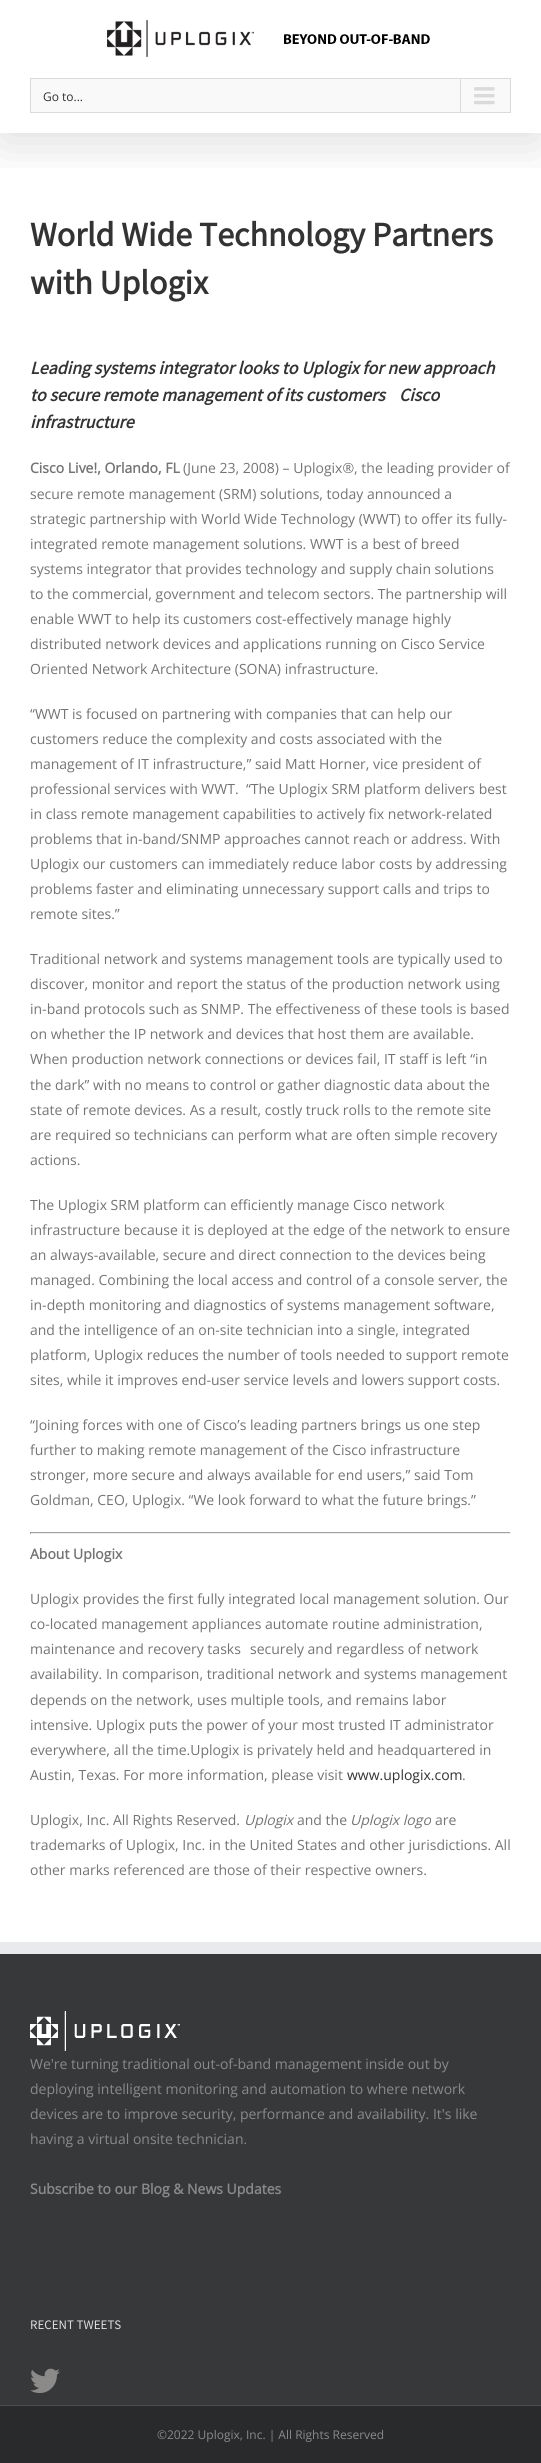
import math
import cairocffi as cairo

surface = cairo.ImageSurface(cairo.FORMAT_RGB24, 541, 2463)
ctx = cairo.Context(surface)
options = cairo.FontOptions()
options.set_hint_metrics(cairo.HINT_METRICS_OFF)
options.set_hint_style(cairo.HINT_STYLE_NONE)
ctx.set_font_options(options)
ctx.set_miter_limit(4)


def rgb(r, g, b):
    ctx.set_source_rgb(r / 255, g / 255, b / 255)


def face(family, size, italic, bold):
    ctx.select_font_face(family, cairo.FONT_SLANT_ITALIC if italic else cairo.FONT_SLANT_NORMAL, cairo.FONT_WEIGHT_BOLD if bold else cairo.FONT_WEIGHT_NORMAL)
    ctx.set_font_size(size)


def label(x, y, s):
    ctx.move_to(x, y)
    ctx.show_text(s)


def rect(x, y, w, h):
    ctx.rectangle(x, y, w, h)
    ctx.fill()


def rrect(x, y, w, h, r):
    ctx.new_sub_path()
    for i, (u, v) in enumerate([(x + w - r, y + h - r), (x + r, y + h - r), (x + r, y + r), (x + w - r, y + r)]):
        ctx.arc(u, v, r, i * math.pi / 2, (i + 1) * math.pi / 2)
    ctx.close_path()


def soft_shadow(x, y, w, h, r, blur, alpha):
    ctx.push_group_with_content(cairo.CONTENT_ALPHA)
    ctx.set_operator(cairo.OPERATOR_SOURCE)
    for i in range(15, -16, -2):
        e = blur * i / 6
        if min(w, h) + 2 * e > 0:
            ctx.set_source_rgba(0, 0, 0, alpha * math.erfc((i - 1) / 8.5) / 2)
            rrect(x - e, y - e, w + 2 * e, h + 2 * e, max(0, min(r + e + blur * .6, min(w, h) / 2 + e)))
            ctx.fill()
    ctx.mask(ctx.pop_group())


def image(path, x, y, w, h):
    ctx.save()
    ctx.set_source_surface(cairo.ImageSurface.create_from_png(path), x, y)
    ctx.rectangle(x, y, w, h)
    ctx.fill()
    ctx.restore()


rgb(255, 255, 255)
ctx.paint()
ctx.save()
ctx.rectangle(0, 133, 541, 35)
ctx.clip()
rgb(0, 0, 0)
soft_shadow(2, 12, 537, 129, 0, 25, 0.14)
ctx.restore()
image('image0.png', 107, 20, 323, 37)
rgb(249, 249, 249)
ctx.rectangle(30.5, 78.5, 480, 34)
ctx.fill_preserve()
rgb(218, 218, 218)
ctx.set_line_width(1)
ctx.stroke()
face('Open Sans', 12, 0, 0)
rgb(51, 51, 51)
label(43, 101, 'Go to...')
rgb(218, 218, 218)
rect(460, 79, 1, 33)
image('image1.png', 474, 87, 21, 18)
face('Source Sans Pro', 34, 0, 1)
rgb(51, 51, 51)
label(30, 246, 'World Wide Technology Partners')
label(30, 294, 'with Uplogix')
face('Source Sans Pro', 18, 1, 1)
label(30, 374, 'Leading systems integrator looks to Uplogix for new approach')
label(30, 401, 'to secure remote management of its customers')
label(399, 401, 'Cisco')
label(30, 428, 'infrastructure')
face('Open Sans', 14, 0, 1)
rgb(116, 116, 116)
label(30, 473, 'Cisco Live!, Orlando, FL')
face('Open Sans', 14, 0, 0)
label(183, 473, '(June 23, 2008) – Uplogix®, the leading provider of')
label(30, 499, 'secure remote management (SRM) solutions, today announced a')
label(30, 524, 'strategic partnership with World Wide Technology (WWT) to offer its fully-')
label(30, 549, 'integrated remote management solutions. WWT is a best of breed')
label(30, 574, 'systems integrator that provides technology and supply chain solutions')
label(30, 599, 'to the commercial, government and telecom sectors. The partnership will')
label(30, 624, 'enable WWT to help its customers cost-effectively manage highly')
label(30, 649, 'distributed network devices and applications running on Cisco Service')
label(30, 674, 'Oriented Network Architecture (SONA) infrastructure.')
label(30, 719, '“WWT is focused on partnering with companies that can help our')
label(30, 744, 'customers reduce the complexity and costs associated with the')
label(30, 769, 'management of IT infrastructure,” said Matt Horner, vice president of')
label(30, 794, 'professional services with WWT.  “The Uplogix SRM platform delivers best')
label(30, 819, 'in class remote management capabilities to actively fix network-related')
label(30, 844, 'problems that in-band/SNMP approaches cannot reach or address. With')
label(30, 869, 'Uplogix our customers can immediately reduce labor costs by addressing')
label(30, 894, 'problems faster and eliminating unnecessary support calls and trips to')
label(30, 919, 'remote sites.”')
label(30, 964, 'Traditional network and systems management tools are typically used to')
label(30, 989, 'discover, monitor and report the status of the production network using')
label(30, 1014, 'in-band protocols such as SNMP. The effectiveness of these tools is based')
label(30, 1039, 'on whether the IP network and devices that host them are available.')
label(30, 1064, 'When production network connections or devices fail, IT staff is left “in')
label(30, 1090, 'the dark” with no means to control or gather diagnostic data about the')
label(30, 1115, 'state of remote devices. As a result, costly truck rolls to the remote site')
label(30, 1140, 'are required so technicians can perform what are often simple recovery')
label(30, 1165, 'actions.')
label(30, 1210, 'The Uplogix SRM platform can efficiently manage Cisco network')
label(30, 1235, 'infrastructure because it is deployed at the edge of the network to ensure')
label(30, 1260, 'an always-available, secure and direct connection to the devices being')
label(30, 1285, 'managed. Combining the local access and control of a console server, the')
label(30, 1310, 'in-depth monitoring and diagnostics of systems management software,')
label(30, 1335, 'and the intelligence of an on-site technician into a single, integrated')
label(30, 1360, 'platform, Uplogix reduces the number of tools needed to support remote')
label(30, 1385, 'sites, while it improves end-user service levels and lowers support costs.')
label(30, 1430, '“Joining forces with one of Cisco’s leading partners brings us one step')
label(30, 1455, 'further to making remote management of the Cisco infrastructure')
label(30, 1480, 'stronger, more secure and always available for end users,” said Tom')
label(30, 1505, 'Goldman, CEO, Uplogix. “We look forward to what the future brings.”')
rgb(159, 159, 159)
rect(30, 1532, 481, 1)
rgb(238, 238, 238)
rect(510, 1532, 1, 2)
rect(30, 1533, 481, 1)
rgb(159, 159, 159)
rect(30, 1532, 1, 2)
face('Open Sans', 14, 0, 1)
rgb(116, 116, 116)
label(30, 1559, 'About Uplogix')
face('Open Sans', 14, 0, 0)
label(30, 1604, 'Uplogix provides the first fully integrated local management solution. Our')
label(30, 1629, 'co-located management appliances automate routine administration,')
label(30, 1654, 'maintenance and recovery tasks')
label(250, 1654, 'securely and regardless of network')
label(30, 1679, 'availability. In comparison, traditional network and systems management')
label(30, 1705, 'depends on the network, uses multiple tools, and remains labor')
label(30, 1730, 'intensive. Uplogix puts the power of your most trusted IT administrator')
label(30, 1755, 'everywhere, all the time.Uplogix is privately held and headquartered in')
label(30, 1780, 'Austin, Texas. For more information, please visit')
rgb(51, 51, 51)
label(347, 1780, 'www.uplogix.com')
rgb(116, 116, 116)
label(462, 1780, '.')
label(30, 1825, 'Uplogix, Inc. All Rights Reserved.')
face('Open Sans', 14, 1, 0)
label(244, 1825, 'Uplogix')
face('Open Sans', 14, 0, 0)
label(297, 1825, 'and the')
face('Open Sans', 14, 1, 0)
label(350, 1825, 'Uplogix logo')
face('Open Sans', 14, 0, 0)
label(435, 1825, 'are')
label(30, 1850, 'trademarks of Uplogix, Inc. in the United States and other jurisdictions. All')
label(30, 1875, 'other marks referenced are those of their respective owners.')
rgb(54, 56, 57)
rect(0, 1954, 541, 451)
rgb(233, 234, 238)
rect(0, 1942, 541, 12)
image('image2.png', 30, 2011, 150, 40)
rgb(140, 137, 137)
label(30, 2069, 'We\'re turning traditional out-of-band management inside out by')
label(30, 2094, 'deploying intelligent monitoring and automation to where network')
label(30, 2119, 'devices are to improve security, performance and availability. It\'s like')
label(30, 2144, 'having a virtual onsite technician.')
face('Open Sans', 14, 0, 1)
label(30, 2194, 'Subscribe to our Blog & News Updates')
face('Source Sans Pro', 13, 0, 0)
rgb(221, 221, 221)
label(30, 2329, 'RECENT TWEETS')
image('image3.png', 30, 2368, 30, 26)
rgb(40, 42, 43)
rect(0, 2406, 541, 57)
rgb(75, 76, 77)
rect(0, 2405, 541, 1)
face('Open Sans', 12, 0, 0)
rgb(140, 137, 137)
label(157, 2439, '©2022 Uplogix, Inc. | All Rights Reserved')
surface.write_to_png('render.png')
